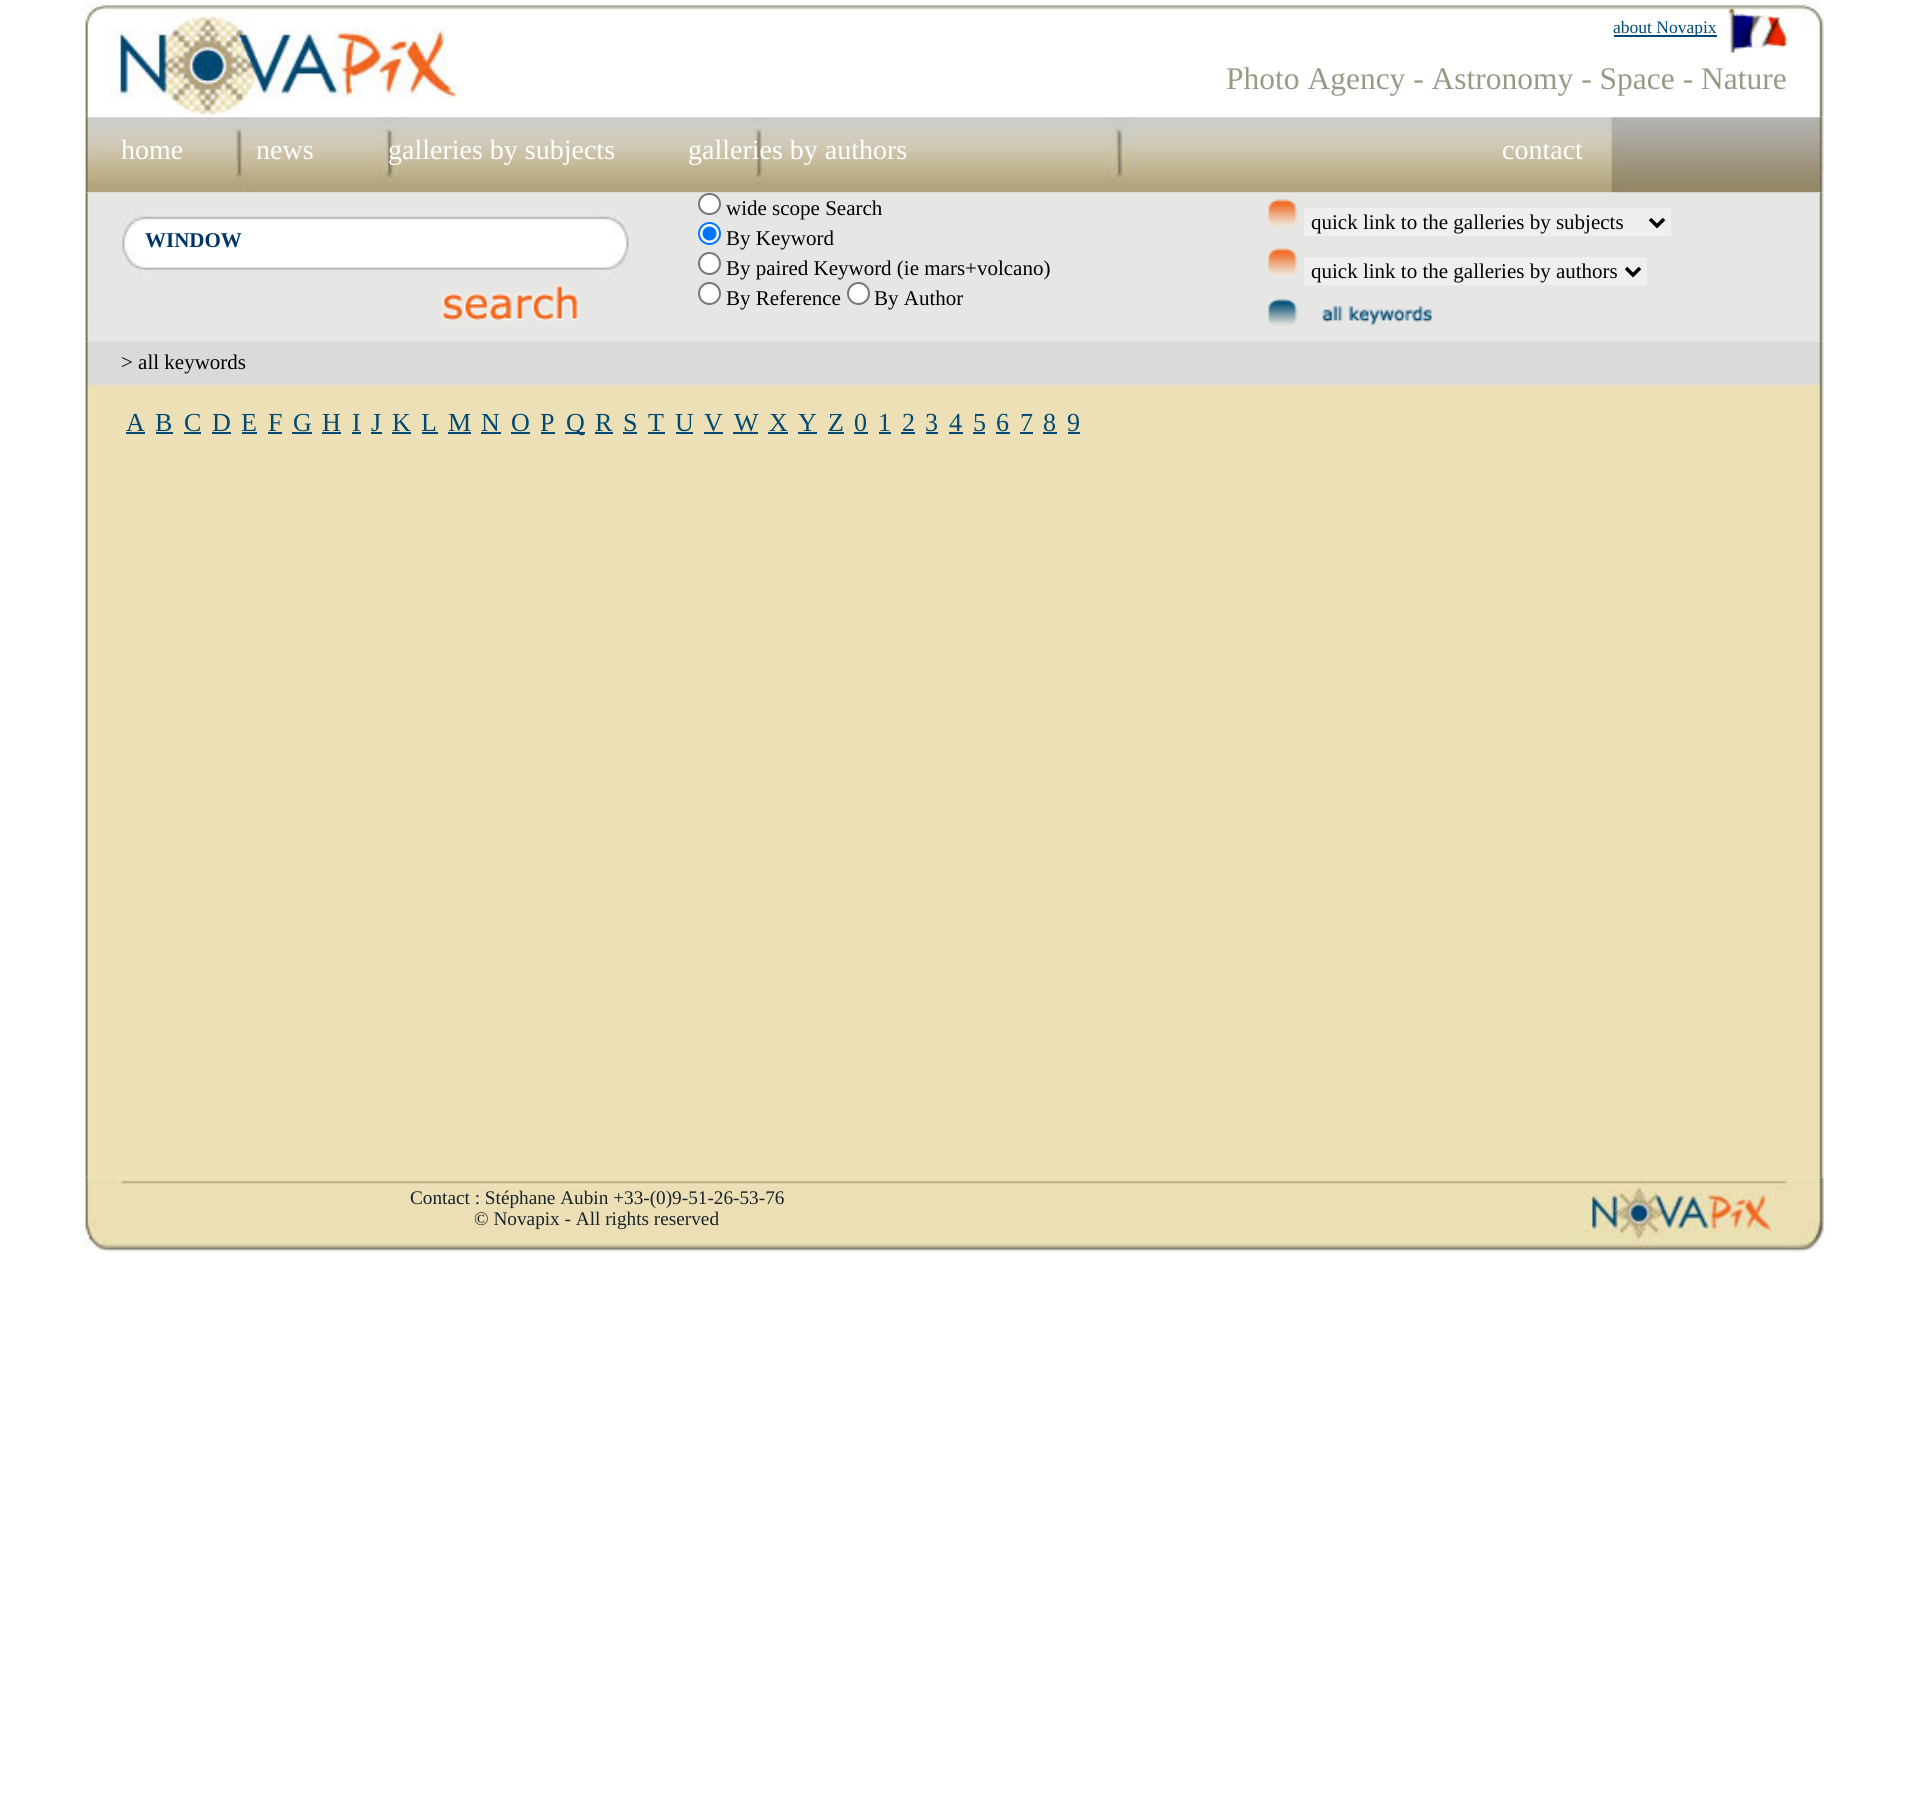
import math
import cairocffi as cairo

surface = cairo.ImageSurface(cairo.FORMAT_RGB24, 1906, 1806)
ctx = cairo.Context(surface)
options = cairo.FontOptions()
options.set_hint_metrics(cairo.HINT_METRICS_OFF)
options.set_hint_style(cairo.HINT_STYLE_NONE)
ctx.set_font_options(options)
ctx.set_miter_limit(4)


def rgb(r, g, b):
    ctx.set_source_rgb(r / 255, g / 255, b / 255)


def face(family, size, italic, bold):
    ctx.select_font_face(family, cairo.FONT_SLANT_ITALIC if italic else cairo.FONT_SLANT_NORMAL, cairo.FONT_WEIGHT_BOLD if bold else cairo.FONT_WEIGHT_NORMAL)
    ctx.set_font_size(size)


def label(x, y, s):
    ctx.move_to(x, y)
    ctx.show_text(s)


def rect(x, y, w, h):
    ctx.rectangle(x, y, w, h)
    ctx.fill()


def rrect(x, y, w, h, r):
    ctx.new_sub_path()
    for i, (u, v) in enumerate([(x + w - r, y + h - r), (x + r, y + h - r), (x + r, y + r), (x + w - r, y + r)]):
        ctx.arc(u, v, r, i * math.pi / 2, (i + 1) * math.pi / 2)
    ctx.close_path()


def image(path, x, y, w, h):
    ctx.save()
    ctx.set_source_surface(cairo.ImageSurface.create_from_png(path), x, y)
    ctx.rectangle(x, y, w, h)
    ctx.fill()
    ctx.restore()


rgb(255, 255, 255)
ctx.paint()
image('image0.png', 82, 0, 1743, 118)
rgb(0, 73, 114)
rect(1614, 35, 103, 2)
face('Liberation Serif', 17.5, 0, 0)
label(1613, 33, 'about Novapix')
image('image1.png', 1728, 8, 59, 45)
face('Liberation Serif', 31.5, 0, 0)
rgb(155, 153, 133)
label(1226, 89, 'Photo Agency - Astronomy - Space - Nature')
image('image2.png', 82, 117, 1742, 76)
face('Liberation Serif', 28, 0, 0)
rgb(255, 255, 255)
label(121, 159, 'home')
label(256, 159, 'news')
label(388, 159, 'galleries by subjects')
label(688, 159, 'galleries by authors')
label(1502, 159, 'contact')
image('image3.png', 84, 192, 1740, 150)
image('image4.png', 121, 210, 509, 66)
rect(138, 221, 10, 38)
face('Liberation Serif', 21, 0, 1)
rgb(0, 51, 102)
label(145, 247, 'WINDOW')
image('image5.png', 441, 275, 174, 47)
rgb(255, 255, 255)
rrect(699, 194, 21, 20, 10)
ctx.fill_preserve()
rgb(118, 118, 118)
ctx.stroke()
face('Liberation Serif', 21, 0, 0)
rgb(0, 0, 0)
label(726, 215, 'wide scope Search')
rgb(255, 255, 255)
ctx.new_path()
ctx.arc(709.5, 233.5, 10.5, 0, 2 * math.pi)
ctx.fill_preserve()
rgb(0, 117, 255)
ctx.stroke()
ctx.arc(709.5, 233.5, 7, 0, 2 * math.pi)
ctx.fill()
rgb(0, 0, 0)
label(726, 245, 'By Keyword')
rgb(255, 255, 255)
ctx.new_path()
ctx.arc(709.5, 263.5, 10.5, 0, 2 * math.pi)
ctx.fill_preserve()
rgb(118, 118, 118)
ctx.stroke()
rgb(0, 0, 0)
label(726, 275, 'By paired Keyword (ie mars+volcano)')
rgb(255, 255, 255)
ctx.new_path()
ctx.arc(709.5, 293.5, 10.5, 0, 2 * math.pi)
ctx.fill_preserve()
rgb(118, 118, 118)
ctx.stroke()
rgb(0, 0, 0)
label(726, 305, 'By Reference')
rgb(255, 255, 255)
ctx.new_path()
ctx.arc(858.5, 293.5, 10.5, 0, 2 * math.pi)
ctx.fill_preserve()
rgb(118, 118, 118)
ctx.stroke()
rgb(0, 0, 0)
label(874, 305, 'By Author')
image('image6.png', 1268, 199, 30, 29)
rgb(239, 239, 239)
rect(1304, 208, 367, 28)
ctx.new_path()
ctx.move_to(1650, 219)
ctx.line_to(1657, 226)
ctx.line_to(1664, 219)
rgb(0, 0, 0)
ctx.set_line_width(3.5)
ctx.stroke()
label(1311, 229, 'quick link to the galleries by subjects')
image('image7.png', 1268, 248, 30, 29)
rgb(239, 239, 239)
rect(1304, 257, 343, 28)
ctx.new_path()
ctx.move_to(1626, 268)
ctx.line_to(1633, 275)
ctx.line_to(1640, 268)
rgb(0, 0, 0)
ctx.stroke()
label(1311, 278, 'quick link to the galleries by authors')
image('image8.png', 1268, 298, 164, 29)
image('image9.png', 84, 341, 1740, 44)
label(121, 369, '> all keywords')
image('image10.png', 84, 385, 1740, 793)
face('Liberation Serif', 26, 0, 0)
rgb(0, 73, 114)
label(126, 431, 'A')
rect(126, 432, 19, 2)
label(155, 431, 'B')
rect(156, 432, 17, 2)
label(184, 431, 'C')
rect(184, 432, 17, 2)
label(212, 431, 'D')
rect(212, 432, 19, 2)
label(241, 431, 'E')
rect(242, 432, 15, 2)
label(268, 431, 'F')
rect(268, 432, 14, 2)
label(293, 431, 'G')
rect(292, 432, 20, 2)
label(322, 431, 'H')
rect(322, 432, 19, 2)
label(352, 431, 'I')
rect(352, 432, 9, 2)
label(371, 431, 'J')
rect(371, 432, 11, 2)
label(392, 431, 'K')
rect(392, 432, 19, 2)
label(421, 431, 'L')
rect(422, 432, 16, 2)
label(448, 431, 'M')
rect(448, 432, 23, 2)
label(481, 431, 'N')
rect(481, 432, 20, 2)
label(511, 431, 'O')
rect(511, 432, 19, 2)
label(540, 431, 'P')
rect(541, 432, 14, 2)
rect(565, 432, 20, 2)
label(566, 431, 'Q')
label(595, 431, 'R')
rect(595, 432, 18, 2)
label(623, 431, 'S')
rect(623, 432, 14, 2)
label(648, 431, 'T')
rect(648, 432, 17, 2)
label(675, 431, 'U')
rect(676, 432, 17, 2)
label(704, 431, 'V')
rect(704, 432, 19, 2)
label(734, 431, 'W')
rect(733, 432, 25, 2)
label(769, 431, 'X')
rect(768, 432, 20, 2)
label(798, 431, 'Y')
rect(798, 432, 19, 2)
label(828, 431, 'Z')
rect(828, 432, 16, 2)
label(854, 431, '0')
rect(854, 432, 14, 2)
label(878, 431, '1')
rect(879, 432, 12, 2)
label(902, 431, '2')
rect(901, 432, 14, 2)
label(925, 431, '3')
rect(926, 432, 12, 2)
label(949, 431, '4')
rect(949, 432, 14, 2)
label(973, 431, '5')
rect(973, 432, 12, 2)
label(996, 431, '6')
rect(996, 432, 14, 2)
label(1020, 431, '7')
rect(1020, 432, 13, 2)
label(1043, 431, '8')
rect(1043, 432, 14, 2)
label(1067, 431, '9')
rect(1068, 432, 12, 2)
image('image11.png', 82, 1177, 1743, 76)
face('Liberation Serif', 19.25, 0, 0)
rgb(23, 35, 42)
label(410, 1204, 'Contact : Stéphane Aubin +33-(0)9-51-26-53-76')
label(474, 1225, '© Novapix - All rights reserved')
surface.write_to_png('render.png')
